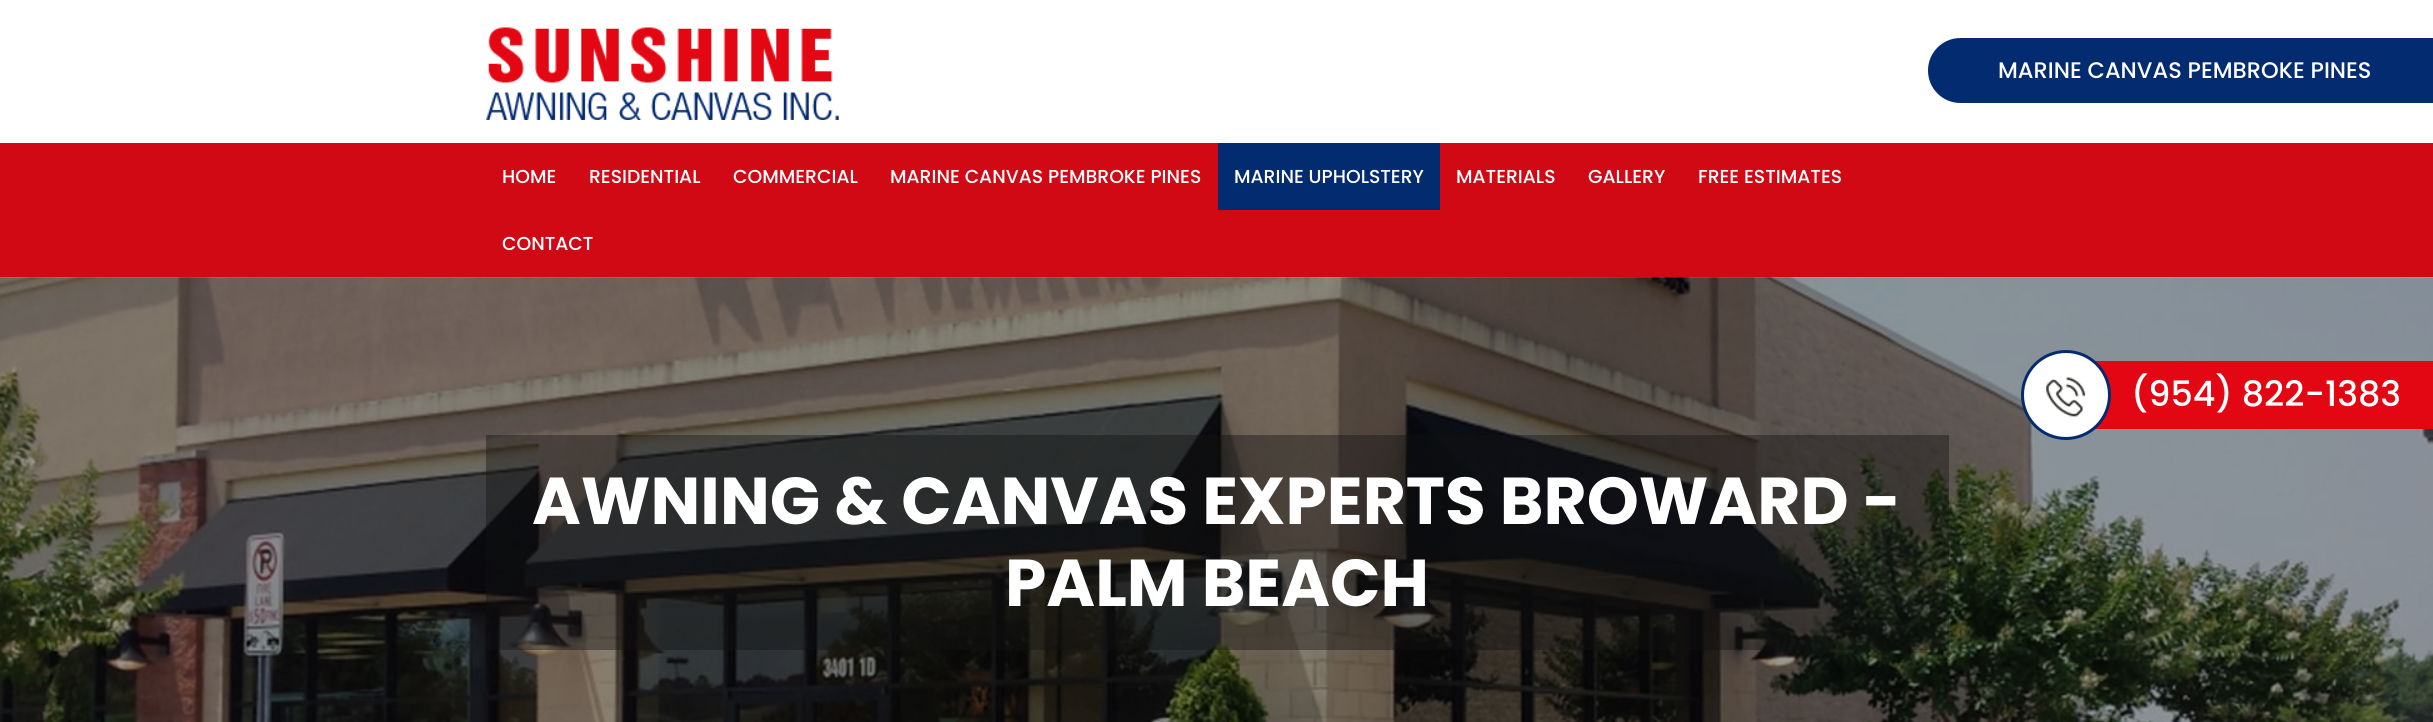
import math
import cairocffi as cairo

surface = cairo.ImageSurface(cairo.FORMAT_RGB24, 2433, 722)
ctx = cairo.Context(surface)
options = cairo.FontOptions()
options.set_hint_metrics(cairo.HINT_METRICS_OFF)
options.set_hint_style(cairo.HINT_STYLE_NONE)
ctx.set_font_options(options)
ctx.set_miter_limit(4)


def rgb(r, g, b):
    ctx.set_source_rgb(r / 255, g / 255, b / 255)


def face(family, size, italic, bold):
    ctx.select_font_face(family, cairo.FONT_SLANT_ITALIC if italic else cairo.FONT_SLANT_NORMAL, cairo.FONT_WEIGHT_BOLD if bold else cairo.FONT_WEIGHT_NORMAL)
    ctx.set_font_size(size)


def label(x, y, s):
    ctx.move_to(x, y)
    ctx.show_text(s)


def rect(x, y, w, h):
    ctx.rectangle(x, y, w, h)
    ctx.fill()


def image(path, x, y, w, h):
    ctx.save()
    ctx.set_source_surface(cairo.ImageSurface.create_from_png(path), x, y)
    ctx.rectangle(x, y, w, h)
    ctx.fill()
    ctx.restore()


rgb(255, 255, 255)
ctx.paint()
image('image0.png', 486, 27, 353, 93)
rgb(3, 43, 111)
ctx.new_path()
ctx.move_to(1960.5, 38)
ctx.line_to(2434, 38)
ctx.line_to(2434, 103)
ctx.line_to(1960.5, 103)
ctx.curve_to(1942.5, 103, 1928, 88.5, 1928, 70.5)
ctx.curve_to(1928, 52.5, 1942.5, 38, 1960.5, 38)
ctx.close_path()
ctx.fill()
face('Poppins Medium', 22.5, 0, 0)
rgb(255, 255, 255)
label(1998, 78, 'MARINE CANVAS PEMBROKE PINES')
rgb(208, 9, 21)
rect(0, 143, 2433, 135)
face('Poppins Medium', 18.75, 0, 0)
rgb(255, 255, 255)
label(502, 183, 'HOME')
label(589, 183, 'RESIDENTIAL')
label(733, 183, 'COMMERCIAL')
label(890, 183, 'MARINE CANVAS PEMBROKE PINES')
rgb(3, 43, 111)
rect(1218, 143, 222, 67)
rgb(255, 255, 255)
label(1234, 183, 'MARINE UPHOLSTERY')
label(1456, 183, 'MATERIALS')
label(1588, 183, 'GALLERY')
label(1698, 183, 'FREE ESTIMATES')
label(502, 250, 'CONTACT')
image('image2.png', 0, 277, 2433, 445)
rgb(227, 6, 19)
rect(2095, 361, 338, 68)
rgb(255, 255, 255)
ctx.arc(2066, 395, 43.5, 0, 2 * math.pi)
ctx.fill_preserve()
rgb(3, 43, 111)
ctx.set_line_width(3)
ctx.stroke()
image('image1.png', 2046, 377, 40, 40)
face('Poppins Medium', 35, 0, 0)
rgb(255, 255, 255)
label(2131, 406, '(954) 822-1383')
ctx.set_source_rgba(0.071, 0.071, 0.071, 0.41)
rect(486, 435, 1463, 215)
face('Poppins', 66.25, 0, 1)
rgb(255, 255, 255)
label(532, 524, 'AWNING & CANVAS EXPERTS BROWARD -')
label(1005, 606, 'PALM BEACH')
surface.write_to_png('render.png')
